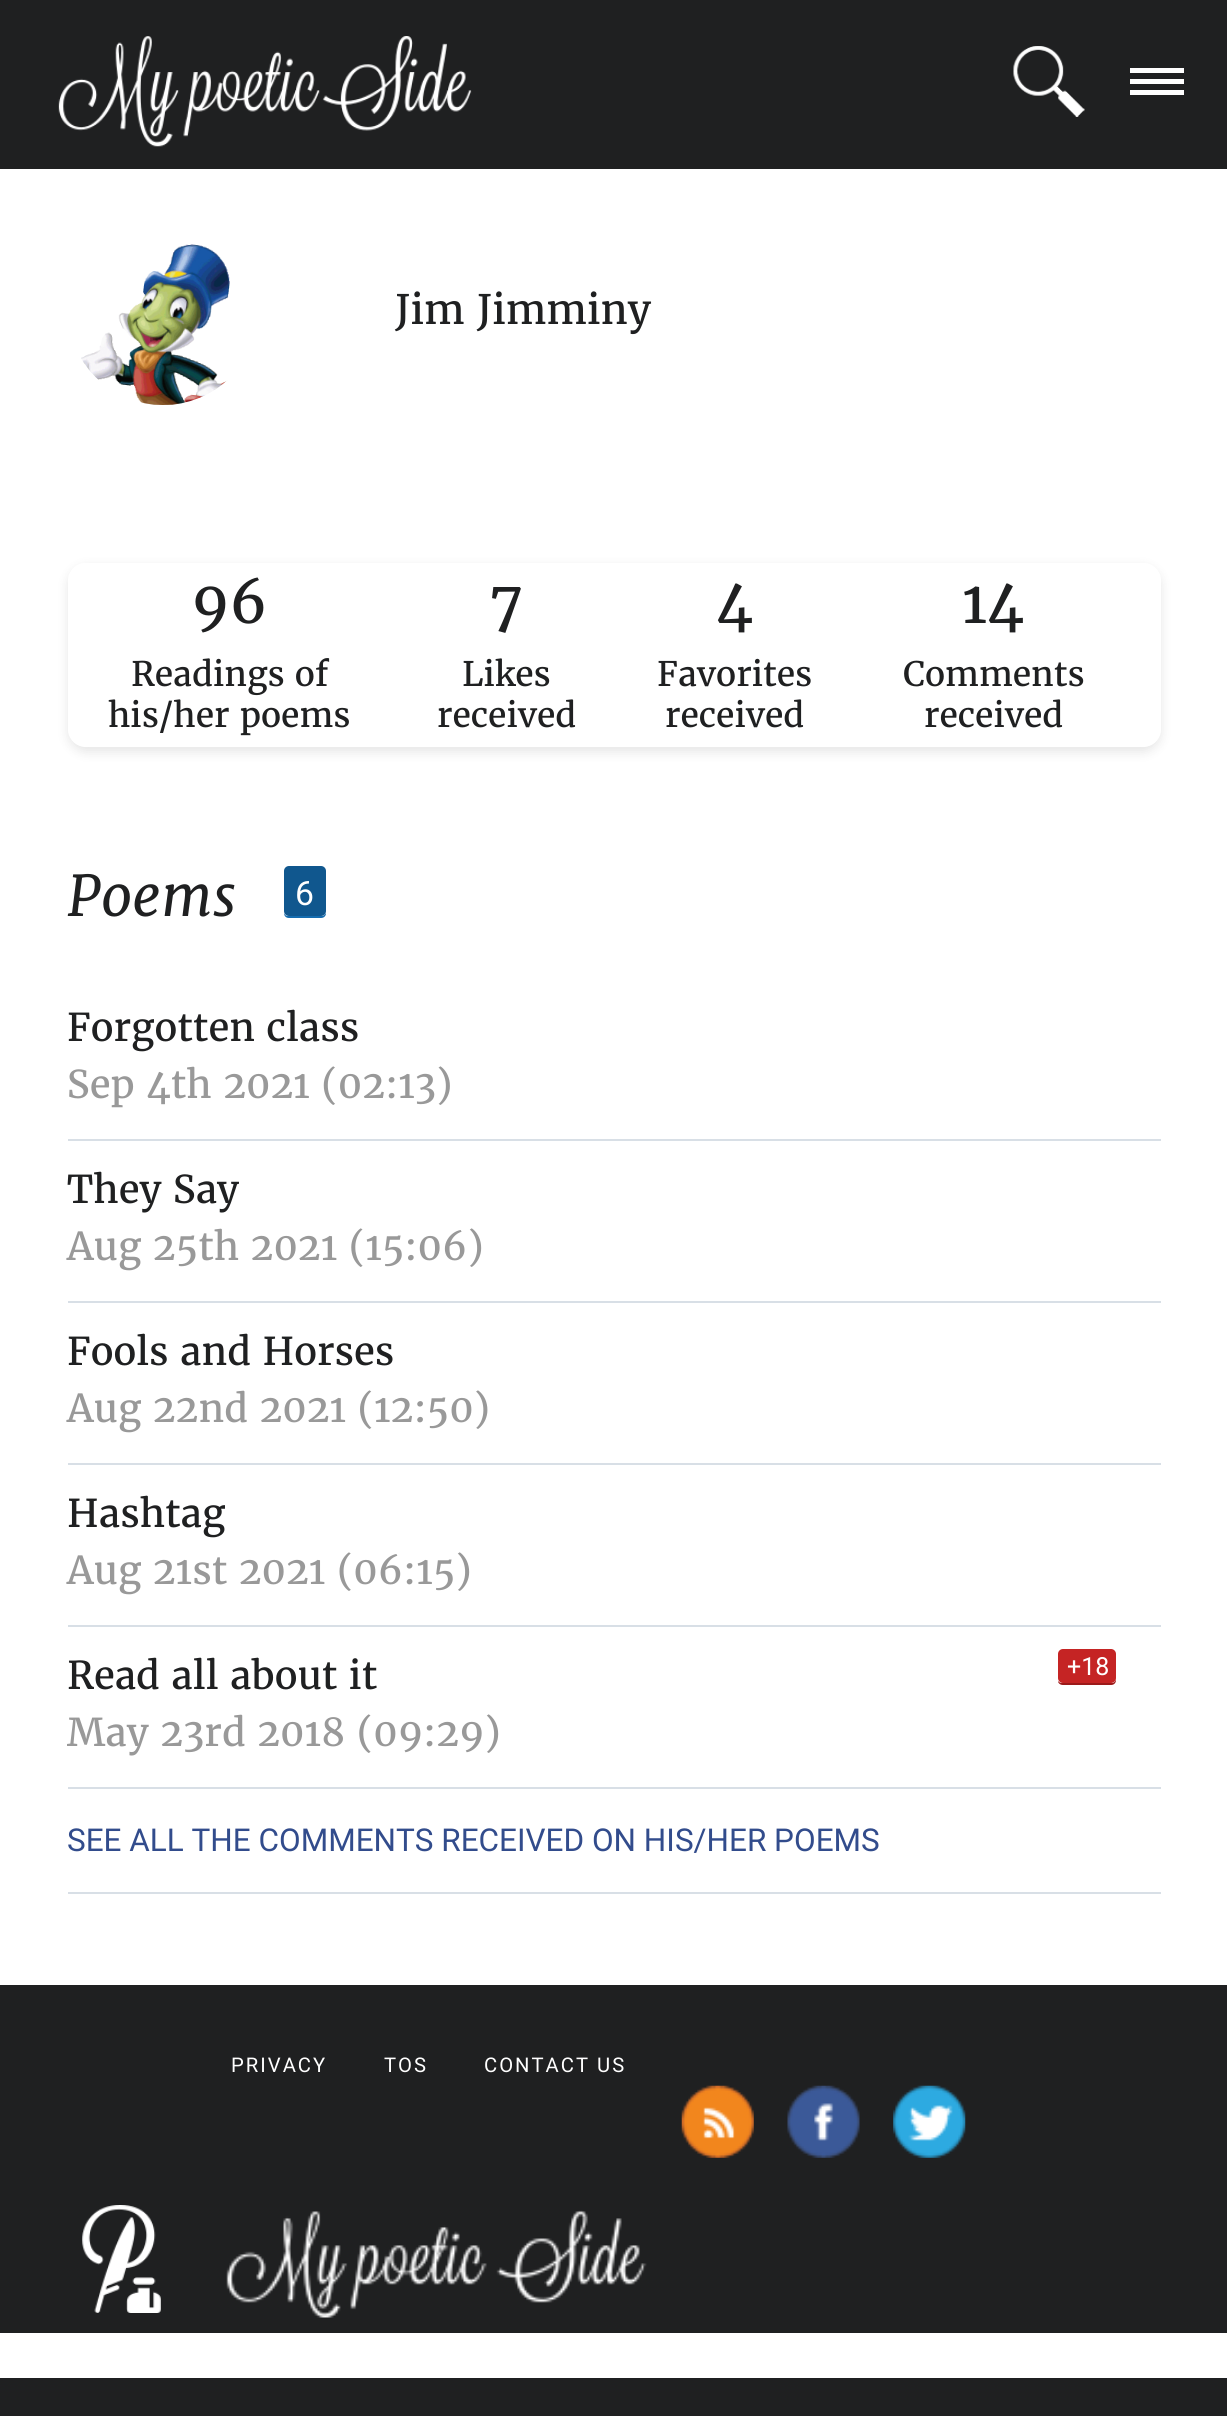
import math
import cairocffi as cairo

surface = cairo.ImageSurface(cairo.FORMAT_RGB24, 1227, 2416)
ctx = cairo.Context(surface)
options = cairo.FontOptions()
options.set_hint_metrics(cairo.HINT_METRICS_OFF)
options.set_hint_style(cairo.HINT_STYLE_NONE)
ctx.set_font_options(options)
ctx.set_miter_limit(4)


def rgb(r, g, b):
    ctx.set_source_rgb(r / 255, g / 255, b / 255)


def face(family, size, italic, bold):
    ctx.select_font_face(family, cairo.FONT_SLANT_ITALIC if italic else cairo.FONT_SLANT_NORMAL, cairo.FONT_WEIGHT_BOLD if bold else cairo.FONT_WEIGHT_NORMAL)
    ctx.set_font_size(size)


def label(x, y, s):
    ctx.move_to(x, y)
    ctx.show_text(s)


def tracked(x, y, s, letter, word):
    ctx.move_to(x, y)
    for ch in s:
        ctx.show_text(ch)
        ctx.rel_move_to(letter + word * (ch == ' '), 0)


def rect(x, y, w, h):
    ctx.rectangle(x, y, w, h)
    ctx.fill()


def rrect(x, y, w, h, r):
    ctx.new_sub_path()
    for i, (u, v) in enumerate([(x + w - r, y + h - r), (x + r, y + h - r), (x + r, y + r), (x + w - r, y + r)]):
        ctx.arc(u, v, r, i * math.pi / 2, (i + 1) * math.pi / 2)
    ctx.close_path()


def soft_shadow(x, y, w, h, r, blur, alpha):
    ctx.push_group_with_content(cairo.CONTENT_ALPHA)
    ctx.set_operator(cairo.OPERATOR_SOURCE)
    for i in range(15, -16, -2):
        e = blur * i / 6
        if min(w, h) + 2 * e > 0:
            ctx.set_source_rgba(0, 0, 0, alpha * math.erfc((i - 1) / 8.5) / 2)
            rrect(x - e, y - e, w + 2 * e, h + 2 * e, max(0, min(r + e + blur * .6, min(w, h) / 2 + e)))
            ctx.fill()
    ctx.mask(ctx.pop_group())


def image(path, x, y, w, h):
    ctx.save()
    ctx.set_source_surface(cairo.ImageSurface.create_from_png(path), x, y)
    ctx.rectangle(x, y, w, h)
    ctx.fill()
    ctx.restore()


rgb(31, 32, 33)
ctx.paint()
image('image0.png', 58, 36, 414, 111)
image('image1.png', 1013, 46, 72, 71)
rgb(255, 255, 255)
rect(1130, 79, 54, 5)
rect(1130, 68, 54, 5)
rect(1130, 90, 54, 5)
rect(0, 169, 1227, 2209)
image('image2.png', 81, 244, 149, 161)
face('Merriweather', 40.5, 0, 0)
rgb(31, 32, 33)
label(395, 324, 'Jim Jimminy')
ctx.save()
ctx.set_fill_rule(cairo.FILL_RULE_EVEN_ODD)
ctx.new_path()
ctx.move_to(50, 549)
ctx.line_to(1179, 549)
ctx.line_to(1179, 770)
ctx.line_to(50, 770)
ctx.close_path()
ctx.move_to(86, 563)
ctx.line_to(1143, 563)
ctx.curve_to(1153, 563, 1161, 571, 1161, 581)
ctx.line_to(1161, 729)
ctx.curve_to(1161, 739, 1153, 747, 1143, 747)
ctx.line_to(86, 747)
ctx.curve_to(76, 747, 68, 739, 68, 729)
ctx.line_to(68, 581)
ctx.curve_to(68, 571, 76, 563, 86, 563)
ctx.close_path()
ctx.clip()
rgb(0, 0, 0)
soft_shadow(68, 567, 1093, 185, 18, 5.5, 0.1)
ctx.restore()
face('Merriweather', 58, 0, 0)
label(191, 623, '96')
face('Merriweather', 33.75, 0, 0)
label(131, 686, 'Readings of')
label(108, 727, 'his/her poems')
face('Merriweather', 58, 0, 0)
label(490, 623, '7')
face('Merriweather', 33.75, 0, 0)
label(462, 686, 'Likes')
label(437, 727, 'received')
face('Merriweather', 58, 0, 0)
label(716, 623, '4')
face('Merriweather', 33.75, 0, 0)
label(657, 686, 'Favorites')
label(665, 727, 'received')
face('Merriweather', 58, 0, 0)
label(962, 623, '14')
face('Merriweather', 33.75, 0, 0)
label(903, 686, 'Comments')
label(924, 727, 'received')
face('Merriweather', 56, 1, 0)
label(67, 916, 'Poems')
rgb(21, 108, 175)
ctx.new_path()
ctx.move_to(284, 913)
ctx.curve_to(284, 916, 286, 918, 289, 918)
ctx.line_to(321, 918)
ctx.curve_to(324, 918, 326, 916, 326, 913)
ctx.curve_to(325, 914, 324, 916, 322, 916)
ctx.line_to(288, 916)
ctx.curve_to(286, 916, 285, 915, 284, 913)
ctx.close_path()
ctx.fill()
rgb(16, 87, 142)
rrect(284, 866, 42, 50, 5)
ctx.fill()
face('Roboto', 33.75, 0, 0)
rgb(255, 255, 255)
label(295, 905, '6')
rgb(216, 223, 230)
rect(68, 1139, 1093, 2)
face('Merriweather', 38.25, 0, 0)
rgb(31, 32, 33)
label(67, 1041, 'Forgotten class')
rgb(153, 153, 153)
label(67, 1098, 'Sep 4th 2021 (02:13)')
rgb(216, 223, 230)
rect(68, 1301, 1093, 2)
rgb(31, 32, 33)
label(67, 1203, 'They Say')
rgb(153, 153, 153)
label(67, 1260, 'Aug 25th 2021 (15:06)')
rgb(216, 223, 230)
rect(68, 1463, 1093, 2)
rgb(31, 32, 33)
label(67, 1365, 'Fools and Horses')
rgb(153, 153, 153)
label(67, 1422, 'Aug 22nd 2021 (12:50)')
rgb(216, 223, 230)
rect(68, 1625, 1093, 2)
rgb(31, 32, 33)
label(67, 1527, 'Hashtag')
rgb(153, 153, 153)
label(67, 1584, 'Aug 21st 2021 (06:15)')
rgb(216, 223, 230)
rect(68, 1787, 1093, 2)
rgb(31, 32, 33)
label(67, 1689, 'Read all about it')
rgb(156, 26, 26)
ctx.new_path()
ctx.move_to(1058, 1681)
ctx.curve_to(1058, 1683, 1060, 1685, 1063, 1685)
ctx.line_to(1111, 1685)
ctx.curve_to(1114, 1685, 1116, 1683, 1116, 1680)
ctx.line_to(1116, 1678)
ctx.curve_to(1116, 1681, 1114, 1683, 1112, 1683)
ctx.line_to(1062, 1683)
ctx.curve_to(1060, 1683, 1059, 1682, 1058, 1681)
ctx.close_path()
ctx.fill()
rgb(197, 36, 36)
rrect(1058, 1649, 58, 34, 5)
ctx.fill()
face('Roboto', 25, 0, 0)
rgb(255, 255, 255)
label(1067, 1675, '+18')
face('Merriweather', 38.25, 0, 0)
rgb(153, 153, 153)
label(67, 1746, 'May 23rd 2018 (09:29)')
rgb(216, 223, 230)
rect(68, 1892, 1093, 2)
face('Roboto', 31.5, 0, 0)
rgb(50, 76, 140)
label(67, 1851, 'SEE ALL THE COMMENTS RECEIVED ON HIS/HER POEMS')
rgb(31, 32, 33)
rect(0, 1985, 1227, 348)
face('Roboto', 20.25, 0, 0)
rgb(255, 255, 255)
tracked(231, 2072, 'PRIVACY', 2, 0)
tracked(384, 2072, 'TOS', 2, 0)
tracked(484, 2072, 'CONTACT US', 2, 0)
image('image3.png', 681, 2085, 73, 73)
image('image4.png', 787, 2085, 73, 73)
image('image5.png', 893, 2085, 73, 73)
image('image6.png', 82, 2205, 79, 108)
image('image7.png', 226, 2210, 421, 108)
surface.write_to_png('render.png')
